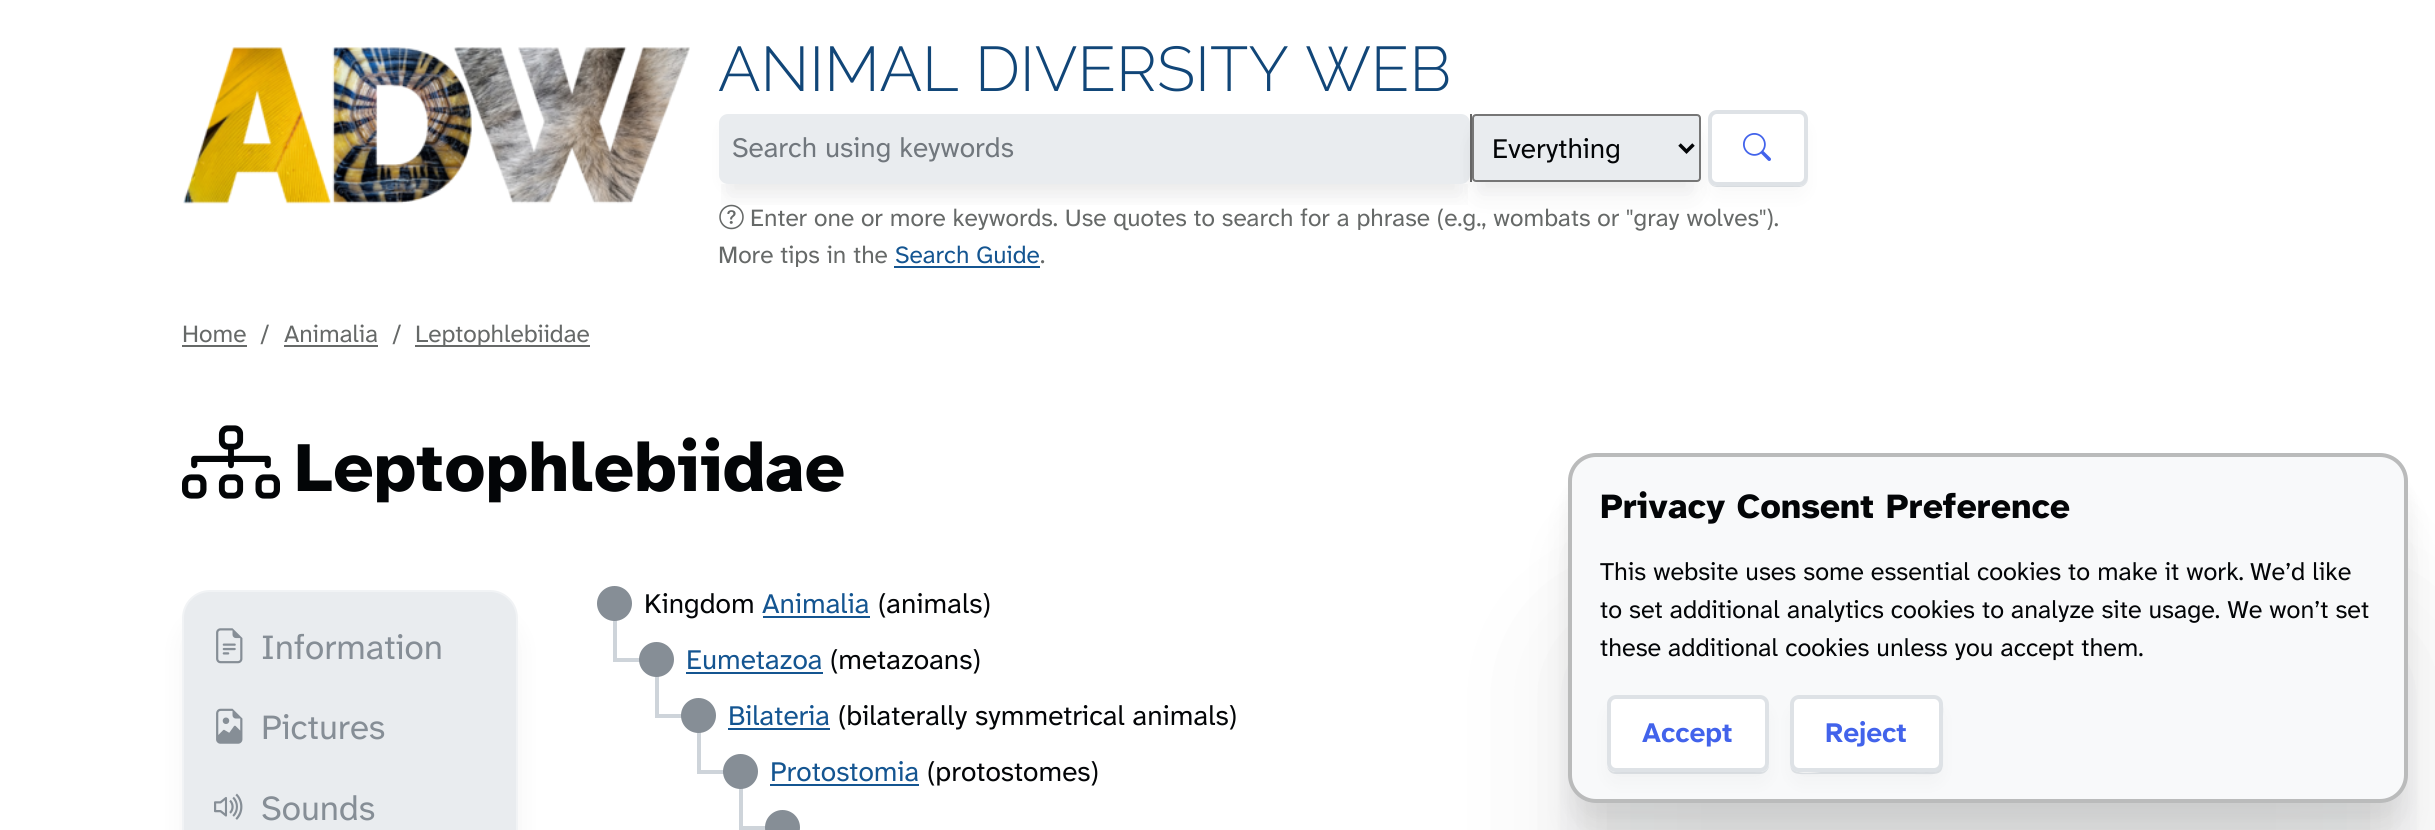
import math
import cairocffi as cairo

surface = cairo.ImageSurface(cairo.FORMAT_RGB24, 2435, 830)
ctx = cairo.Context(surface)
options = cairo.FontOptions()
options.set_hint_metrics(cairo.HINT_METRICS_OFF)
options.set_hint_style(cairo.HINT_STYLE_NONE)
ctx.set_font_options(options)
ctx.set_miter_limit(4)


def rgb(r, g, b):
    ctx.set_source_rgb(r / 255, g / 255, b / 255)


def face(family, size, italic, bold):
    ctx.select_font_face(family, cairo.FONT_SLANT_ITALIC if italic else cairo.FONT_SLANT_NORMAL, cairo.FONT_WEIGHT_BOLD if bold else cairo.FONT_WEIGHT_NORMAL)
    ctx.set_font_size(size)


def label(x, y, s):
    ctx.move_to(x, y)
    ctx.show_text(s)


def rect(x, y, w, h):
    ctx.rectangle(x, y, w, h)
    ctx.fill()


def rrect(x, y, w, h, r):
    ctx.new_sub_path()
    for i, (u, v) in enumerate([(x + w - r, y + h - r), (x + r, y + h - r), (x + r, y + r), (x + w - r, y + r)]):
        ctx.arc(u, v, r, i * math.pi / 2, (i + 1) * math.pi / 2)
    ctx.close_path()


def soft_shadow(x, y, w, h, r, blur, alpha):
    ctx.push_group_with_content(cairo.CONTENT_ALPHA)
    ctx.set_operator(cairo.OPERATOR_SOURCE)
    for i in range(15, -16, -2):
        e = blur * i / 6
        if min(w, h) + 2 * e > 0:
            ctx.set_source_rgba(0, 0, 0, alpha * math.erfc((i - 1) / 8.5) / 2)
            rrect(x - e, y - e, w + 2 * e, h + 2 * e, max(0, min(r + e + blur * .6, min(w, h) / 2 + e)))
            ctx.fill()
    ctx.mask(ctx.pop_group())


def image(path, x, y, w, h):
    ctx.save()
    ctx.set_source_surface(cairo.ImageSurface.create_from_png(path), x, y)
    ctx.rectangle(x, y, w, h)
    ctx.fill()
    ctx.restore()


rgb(255, 255, 255)
ctx.paint()
image('image0.png', 183, 47, 507, 157)
face('Raleway Light', 63, 0, 0)
rgb(17, 70, 120)
label(718, 91, 'ANIMAL DIVERSITY WEB')
ctx.save()
ctx.rectangle(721, 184, 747, 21)
ctx.clip()
rgb(37, 38, 39)
soft_shadow(728, 144, 733, 52, 0, 13, 0.08)
ctx.restore()
rgb(37, 38, 39)
soft_shadow(728, 130, 733, 52, 0, 10.5, 0.06)
rgb(233, 236, 239)
rrect(719, 114, 751, 70, 9)
ctx.fill()
face('Atkinson Hyperlegible Next', 28, 0, 0)
rgb(113, 119, 125)
label(732, 157, 'Search using keywords')
rgb(37, 38, 39)
soft_shadow(1479, 144, 213, 50, 0, 13, 0.08)
soft_shadow(1479, 130, 213, 50, 0, 10.5, 0.06)
rgb(102, 102, 102)
rect(1470, 114, 2, 68)
rgb(233, 236, 239)
rrect(1473, 115, 227, 66, 3)
ctx.fill_preserve()
rgb(118, 118, 118)
ctx.stroke()
ctx.new_path()
ctx.move_to(1679.5, 144.5)
ctx.line_to(1686.5, 151.5)
ctx.line_to(1693.5, 144.5)
rgb(3, 5, 7)
ctx.set_line_width(3.5)
ctx.stroke()
label(1492, 158, 'Everything')
rgb(222, 226, 230)
ctx.new_path()
ctx.move_to(1708, 177)
ctx.line_to(1708, 178)
ctx.curve_to(1708, 183, 1712, 187, 1717, 187)
ctx.line_to(1799, 187)
ctx.curve_to(1804, 187, 1808, 183, 1808, 178)
ctx.line_to(1808, 119)
ctx.line_to(1808, 177)
ctx.curve_to(1808, 182, 1804, 186, 1799, 186)
ctx.line_to(1717, 186)
ctx.curve_to(1712, 186, 1708, 182, 1708, 177)
ctx.close_path()
ctx.fill()
rgb(37, 38, 39)
soft_shadow(1717, 131, 82, 58, 0, 12, 0.06)
rgb(255, 255, 255)
rrect(1710, 112, 96, 72, 7)
ctx.fill_preserve()
rgb(222, 226, 230)
ctx.set_line_width(4)
ctx.stroke()
image('image1.png', 1743, 133, 28, 28)
image('image2.png', 719, 204, 25, 26)
face('Atkinson Hyperlegible Next', 24.5, 0, 0)
rgb(102, 105, 104)
label(750, 226, 'Enter one or more keywords. Use quotes to search for a phrase (e.g., wombats or "gray wolves").')
label(718, 263, 'More tips in the')
rgb(20, 85, 145)
label(895, 263, 'Search Guide')
rect(894, 266, 146, 2)
rgb(102, 105, 104)
label(1040, 263, '.')
label(182, 342, 'Home')
rect(182, 345, 65, 2)
label(260, 342, '/')
label(284, 342, 'Animalia')
rect(284, 345, 94, 2)
label(392, 342, '/')
rect(415, 345, 175, 2)
label(415, 342, 'Leptophlebiidae')
image('image3.png', 182, 425, 98, 74)
face('Atkinson Hyperlegible Next ExtraBold', 70, 0, 0)
rgb(3, 5, 7)
label(294, 491, 'Leptophlebiidae')
rgb(37, 38, 39)
soft_shadow(186, 621, 329, 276, 25, 14, 0.07)
rgb(233, 236, 239)
rrect(183, 591, 334, 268, 27)
ctx.fill_preserve()
rgb(241, 243, 245)
ctx.set_line_width(2)
ctx.stroke()
image('image4.png', 216, 628, 27, 36)
face('Atkinson Hyperlegible Next', 35, 0, 0)
rgb(134, 142, 150)
label(261, 659, 'Information')
image('image5.png', 216, 708, 27, 36)
label(261, 739, 'Pictures')
image('image6.png', 214, 793, 29, 27)
label(261, 820, 'Sounds')
rgb(206, 212, 218)
rect(613, 658, 27, 4)
rect(613, 618, 4, 44)
rgb(134, 142, 150)
ctx.new_path()
ctx.arc(614.5, 603.5, 17.5, 0, 2 * math.pi)
ctx.fill()
face('Atkinson Hyperlegible Next', 28, 0, 0)
rgb(3, 5, 7)
label(644, 613, 'Kingdom')
rgb(20, 85, 145)
label(762, 613, 'Animalia')
rect(763, 616, 107, 2)
rgb(3, 5, 7)
label(878, 613, '(animals)')
rgb(206, 212, 218)
rect(655, 714, 27, 4)
rect(655, 674, 4, 44)
rgb(134, 142, 150)
ctx.new_path()
ctx.arc(656.5, 659.5, 17.5, 0, 2 * math.pi)
ctx.fill()
rgb(20, 85, 145)
label(686, 669, 'Eumetazoa')
rect(686, 672, 137, 2)
rgb(3, 5, 7)
label(830, 669, '(metazoans)')
rgb(206, 212, 218)
rect(697, 770, 27, 4)
rect(697, 730, 4, 44)
rgb(134, 142, 150)
ctx.new_path()
ctx.arc(698.5, 715.5, 17.5, 0, 2 * math.pi)
ctx.fill()
rgb(20, 85, 145)
label(728, 725, 'Bilateria')
rect(728, 728, 102, 2)
rgb(3, 5, 7)
label(838, 725, '(bilaterally symmetrical animals)')
rgb(206, 212, 218)
rect(739, 826, 27, 4)
rect(739, 786, 4, 44)
rgb(134, 142, 150)
ctx.new_path()
ctx.arc(740.5, 771.5, 17.5, 0, 2 * math.pi)
ctx.fill()
rgb(20, 85, 145)
label(770, 781, 'Protostomia')
rect(770, 784, 149, 2)
rgb(3, 5, 7)
label(927, 781, '(protostomes)')
rgb(134, 142, 150)
ctx.new_path()
ctx.arc(782.5, 827.5, 17.5, 0, 2 * math.pi)
ctx.fill()
rgb(37, 38, 39)
soft_shadow(1572, 632, 833, 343, 25, 70, 0.08)
soft_shadow(1572, 529, 833, 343, 25, 29, 0.07)
soft_shadow(1572, 495, 833, 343, 25, 16, 0.06)
soft_shadow(1572, 478, 833, 343, 25, 9, 0.05)
rgb(248, 249, 250)
rrect(1568, 453, 840, 350, 28)
ctx.fill()
rrect(1570, 455, 836, 346, 26)
ctx.set_source_rgba(0, 0, 0, 0.25)
ctx.set_line_width(4)
ctx.stroke()
face('Atkinson Hyperlegible Next ExtraBold', 35, 0, 0)
rgb(3, 5, 7)
label(1600, 518, 'Privacy Consent Preference')
face('Atkinson Hyperlegible Next', 25.2, 0, 0)
label(1600, 580, 'This website uses some essential cookies to make it work.')
label(2250, 580, 'We’d like')
label(1600, 618, 'to set additional analytics cookies to analyze site usage. We won’t set')
label(1600, 656, 'these additional cookies unless you accept them.')
rgb(222, 226, 230)
ctx.new_path()
ctx.move_to(1607, 766)
ctx.curve_to(1608, 771, 1611, 774, 1616, 774)
ctx.line_to(1760, 774)
ctx.curve_to(1765, 774, 1769, 770, 1769, 765)
ctx.curve_to(1768, 769, 1765, 772, 1760, 772)
ctx.line_to(1615, 772)
ctx.curve_to(1612, 772, 1608, 769, 1607, 766)
ctx.close_path()
ctx.fill()
rgb(37, 38, 39)
soft_shadow(1615, 716, 146, 59, 0, 12, 0.06)
rgb(255, 255, 255)
rrect(1609, 697, 158, 73, 7)
ctx.fill_preserve()
rgb(222, 226, 230)
ctx.stroke()
face('Atkinson Hyperlegible Next', 28, 0, 1)
rgb(66, 99, 235)
label(1642, 742, 'Accept')
rgb(222, 226, 230)
ctx.new_path()
ctx.move_to(1790, 704)
ctx.line_to(1790, 745)
ctx.curve_to(1790, 778, 1787, 774, 1822, 774)
ctx.line_to(1912, 774)
ctx.curve_to(1946, 774, 1943, 778, 1943, 745)
ctx.line_to(1943, 716)
ctx.curve_to(1943, 713, 1944, 707, 1942, 703)
ctx.line_to(1942, 743)
ctx.curve_to(1942, 775, 1945, 772, 1911, 772)
ctx.line_to(1821, 772)
ctx.curve_to(1817, 772, 1793, 777, 1790, 765)
ctx.close_path()
ctx.fill()
rgb(37, 38, 39)
soft_shadow(1799, 716, 135, 59, 0, 12, 0.06)
rgb(255, 255, 255)
rrect(1792, 697, 149, 73, 7)
ctx.fill_preserve()
rgb(222, 226, 230)
ctx.stroke()
rgb(66, 99, 235)
label(1825, 742, 'Reject')
surface.write_to_png('render.png')
